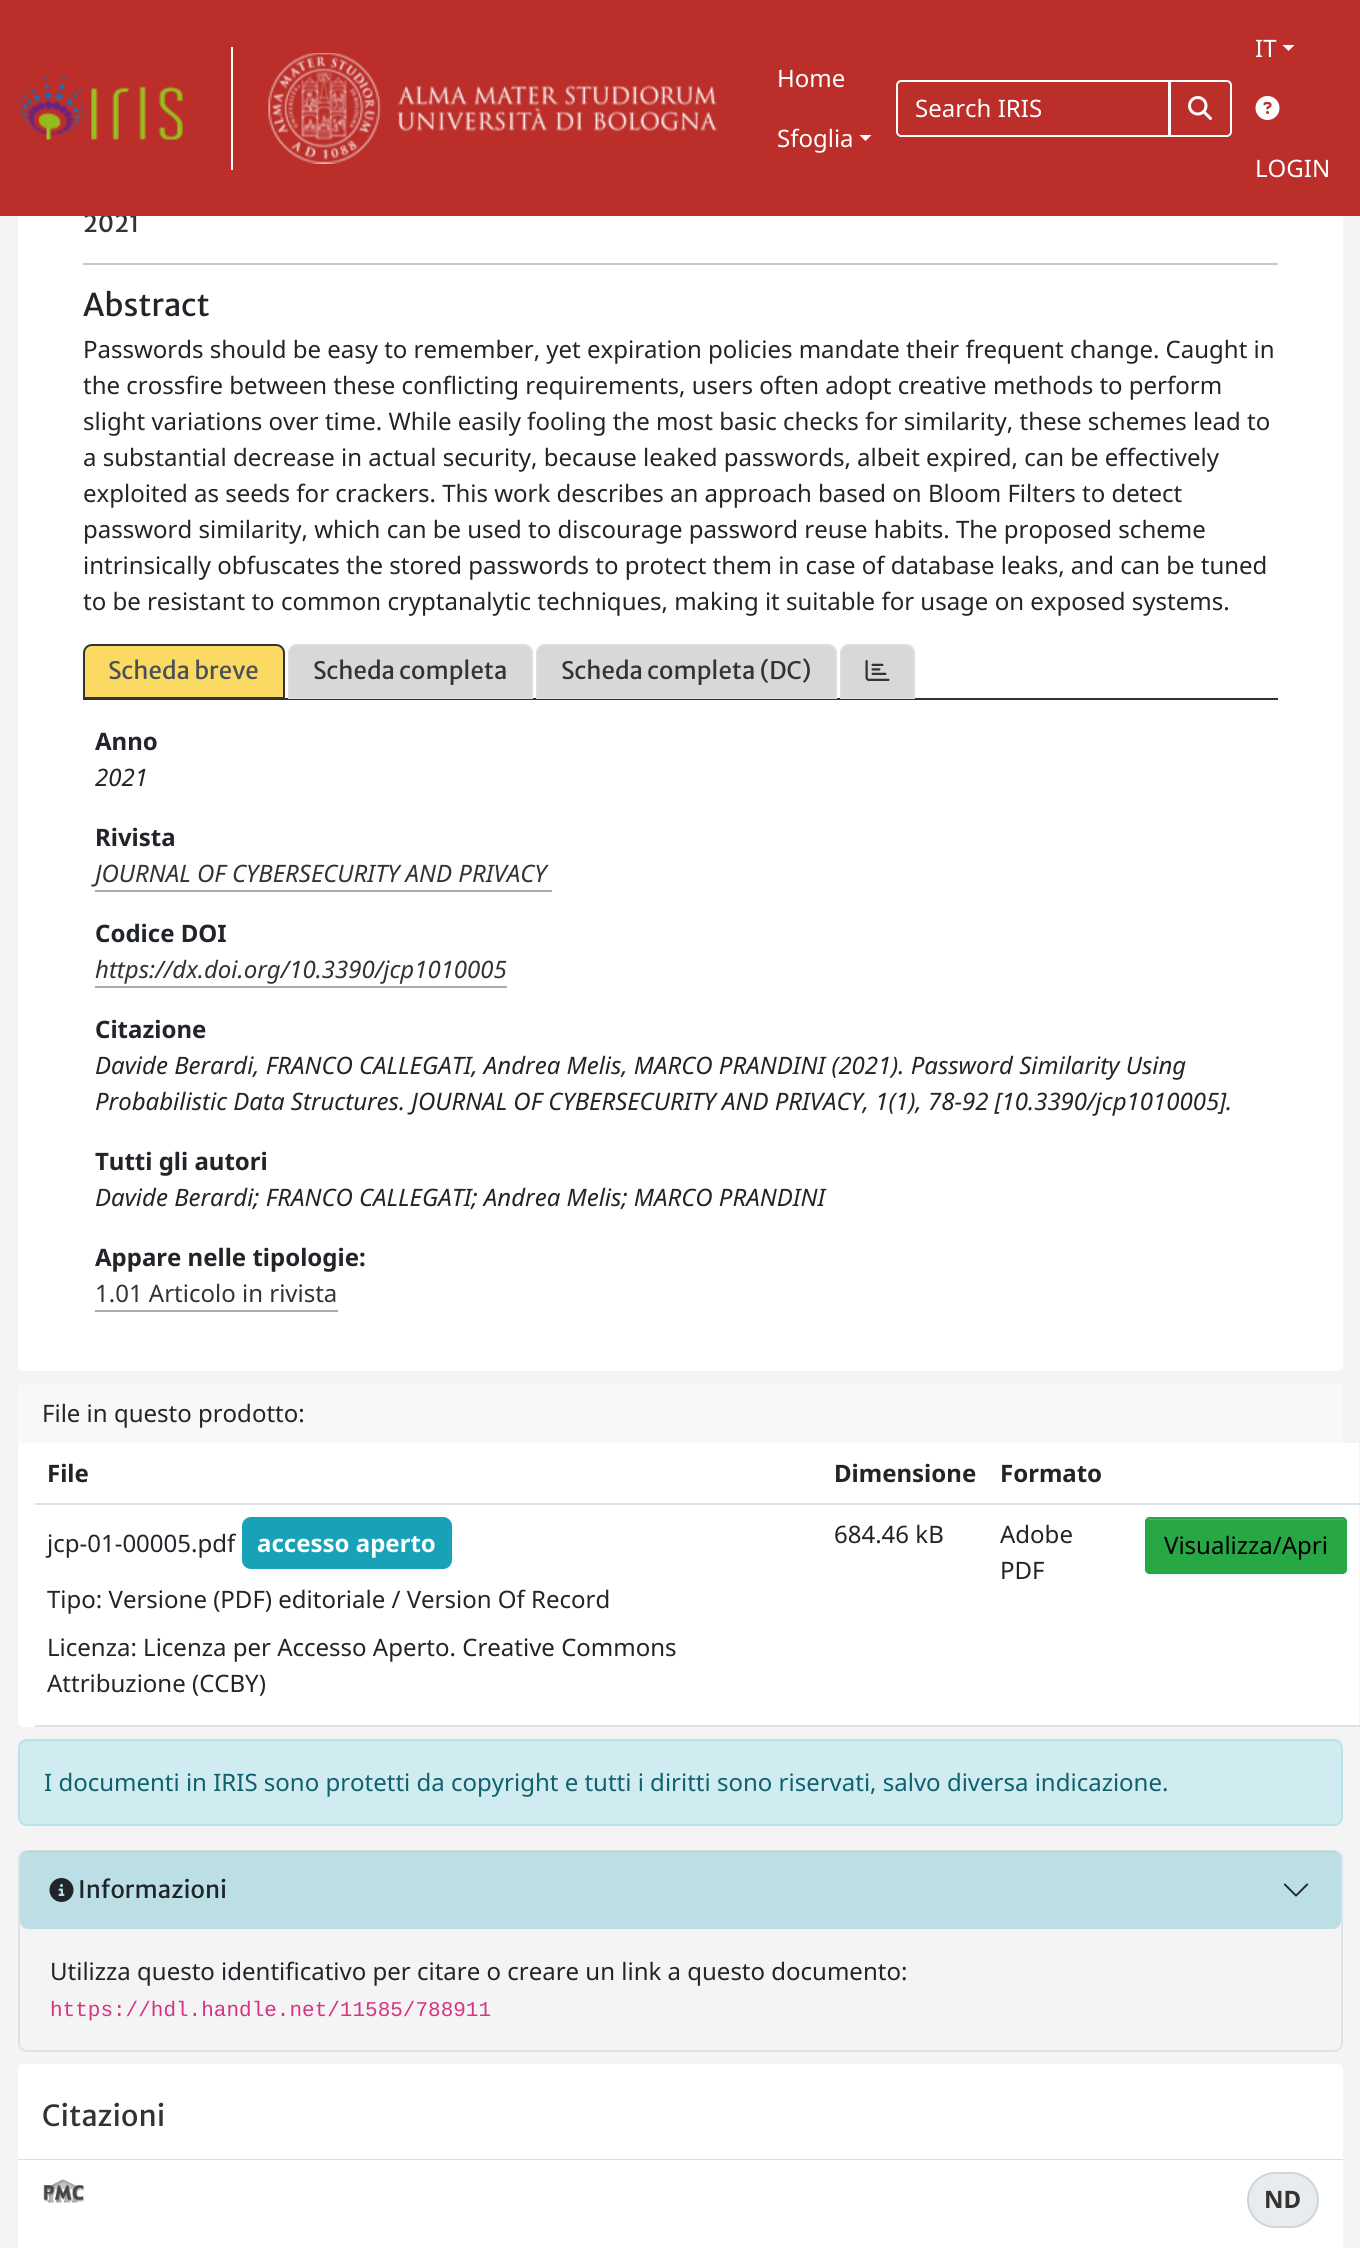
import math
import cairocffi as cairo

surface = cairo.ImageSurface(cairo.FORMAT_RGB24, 1360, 2248)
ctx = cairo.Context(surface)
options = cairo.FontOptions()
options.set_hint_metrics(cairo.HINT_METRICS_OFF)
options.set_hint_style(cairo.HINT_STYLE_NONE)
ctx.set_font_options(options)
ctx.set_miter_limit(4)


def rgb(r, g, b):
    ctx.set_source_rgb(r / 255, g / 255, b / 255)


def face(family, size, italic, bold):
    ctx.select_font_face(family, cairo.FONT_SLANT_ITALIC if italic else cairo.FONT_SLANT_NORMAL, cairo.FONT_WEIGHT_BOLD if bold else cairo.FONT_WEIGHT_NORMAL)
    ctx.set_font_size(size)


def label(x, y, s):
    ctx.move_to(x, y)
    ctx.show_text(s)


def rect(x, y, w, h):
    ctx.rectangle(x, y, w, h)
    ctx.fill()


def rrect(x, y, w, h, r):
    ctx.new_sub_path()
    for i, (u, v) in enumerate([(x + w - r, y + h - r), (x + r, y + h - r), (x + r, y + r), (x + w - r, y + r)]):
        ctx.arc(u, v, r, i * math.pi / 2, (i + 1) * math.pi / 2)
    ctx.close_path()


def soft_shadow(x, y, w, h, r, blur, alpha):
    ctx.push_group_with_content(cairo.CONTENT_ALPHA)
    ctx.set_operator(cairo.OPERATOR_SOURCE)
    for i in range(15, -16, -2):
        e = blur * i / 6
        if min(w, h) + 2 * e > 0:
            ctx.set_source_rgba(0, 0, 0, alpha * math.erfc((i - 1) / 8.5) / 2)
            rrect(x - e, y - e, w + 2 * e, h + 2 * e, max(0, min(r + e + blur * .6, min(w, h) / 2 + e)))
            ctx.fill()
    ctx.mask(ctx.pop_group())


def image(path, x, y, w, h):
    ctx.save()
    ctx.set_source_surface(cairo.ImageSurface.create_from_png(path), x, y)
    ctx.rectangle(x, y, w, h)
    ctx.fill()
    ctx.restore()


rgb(244, 244, 244)
ctx.paint()
rgb(255, 255, 255)
rrect(18, 48, 1325, 1323, 5)
ctx.fill()
face('Merriweather Sans', 24, 0, 0)
rgb(51, 51, 51)
label(83, 232, '2021')
rgb(187, 46, 41)
rect(0, 0, 1360, 216)
image('image0.png', 18, 76, 165, 64)
rgb(255, 255, 255)
rect(231, 47, 2, 123)
image('image1.png', 268, 53, 449, 111)
face('Noto Sans', 24, 0, 0)
label(777, 87, 'Home')
label(777, 147, 'Sfoglia')
ctx.new_path()
ctx.move_to(859.5, 135)
ctx.line_to(871.5, 135)
ctx.line_to(865.5, 141)
ctx.close_path()
ctx.fill()
ctx.new_path()
ctx.move_to(901, 81)
ctx.line_to(1169, 81)
ctx.line_to(1169, 136)
ctx.line_to(901, 136)
ctx.curve_to(899, 136, 897, 134, 897, 132)
ctx.line_to(897, 85)
ctx.curve_to(897, 83, 899, 81, 901, 81)
ctx.close_path()
ctx.stroke()
label(915, 117, 'Search IRIS')
rgb(0, 0, 0)
soft_shadow(1169, 81, 63, 57, 5, 1, 0.07)
rgb(187, 46, 41)
ctx.new_path()
ctx.move_to(1169, 80)
ctx.line_to(1227, 80)
ctx.curve_to(1230, 80, 1232, 82, 1232, 85)
ctx.line_to(1232, 132)
ctx.curve_to(1232, 135, 1230, 137, 1227, 137)
ctx.line_to(1169, 137)
ctx.close_path()
ctx.fill()
rgb(197, 77, 73)
ctx.new_path()
ctx.move_to(1170, 82)
ctx.line_to(1227, 82)
ctx.curve_to(1229, 82, 1230, 84, 1230, 86)
ctx.line_to(1230, 84)
ctx.curve_to(1230, 82, 1229, 81, 1227, 81)
ctx.line_to(1170, 81)
ctx.close_path()
ctx.fill()
ctx.new_path()
ctx.move_to(1170, 81)
ctx.line_to(1227, 81)
ctx.curve_to(1229, 81, 1231, 83, 1231, 85)
ctx.line_to(1231, 132)
ctx.curve_to(1231, 134, 1229, 136, 1227, 136)
ctx.line_to(1170, 136)
ctx.close_path()
rgb(255, 255, 255)
ctx.stroke()
image('image2.png', 1188, 96, 24, 24)
label(1255, 57, 'IT')
ctx.new_path()
ctx.move_to(1282.5, 45)
ctx.line_to(1294.5, 45)
ctx.line_to(1288.5, 51)
ctx.close_path()
ctx.fill()
image('image3.png', 1255, 96, 25, 24)
label(1255, 177, 'LOGIN')
rgb(200, 201, 202)
rect(83, 263, 1195, 2)
face('Merriweather Sans', 31, 0, 0)
rgb(33, 37, 41)
label(83, 316, 'Abstract')
face('Noto Sans', 24, 0, 0)
label(83, 358, 'Passwords should be easy to remember, yet expiration policies mandate their frequent change. Caught in')
label(83, 394, 'the crossfire between these conflicting requirements, users often adopt creative methods to perform')
label(83, 430, 'slight variations over time. While easily fooling the most basic checks for similarity, these schemes lead to')
label(83, 466, 'a substantial decrease in actual security, because leaked passwords, albeit expired, can be effectively')
label(83, 502, 'exploited as seeds for crackers. This work describes an approach based on Bloom Filters to detect')
label(83, 538, 'password similarity, which can be used to discourage password reuse habits. The proposed scheme')
label(83, 574, 'intrinsically obfuscates the stored passwords to protect them in case of database leaks, and can be tuned')
label(83, 610, 'to be resistant to common cryptanalytic techniques, making it suitable for usage on exposed systems.')
rgb(51, 51, 51)
rect(83, 698, 1195, 2)
rgb(251, 218, 100)
ctx.new_path()
ctx.move_to(92, 645)
ctx.line_to(276, 645)
ctx.curve_to(280.5, 645, 284, 648.5, 284, 653)
ctx.line_to(284, 698)
ctx.line_to(84, 698)
ctx.line_to(84, 653)
ctx.curve_to(84, 648.5, 87.5, 645, 92, 645)
ctx.close_path()
ctx.fill_preserve()
rgb(51, 51, 51)
ctx.stroke()
face('Merriweather Sans', 24, 0, 0)
rgb(73, 80, 87)
label(108, 679, 'Scheda breve')
rgb(216, 216, 216)
ctx.new_path()
ctx.move_to(297, 645)
ctx.line_to(524, 645)
ctx.curve_to(528.5, 645, 532, 648.5, 532, 653)
ctx.line_to(532, 698)
ctx.line_to(289, 698)
ctx.line_to(289, 653)
ctx.curve_to(289, 648.5, 292.5, 645, 297, 645)
ctx.close_path()
ctx.fill_preserve()
rgb(221, 221, 221)
ctx.stroke()
rgb(51, 51, 51)
label(313, 679, 'Scheda completa')
rgb(216, 216, 216)
ctx.new_path()
ctx.move_to(545, 645)
ctx.line_to(828, 645)
ctx.curve_to(832.5, 645, 836, 648.5, 836, 653)
ctx.line_to(836, 698)
ctx.line_to(537, 698)
ctx.line_to(537, 653)
ctx.curve_to(537, 648.5, 540.5, 645, 545, 645)
ctx.close_path()
ctx.fill_preserve()
rgb(221, 221, 221)
ctx.stroke()
rgb(51, 51, 51)
label(561, 679, 'Scheda completa (DC)')
rgb(216, 216, 216)
ctx.new_path()
ctx.move_to(849, 645)
ctx.line_to(906, 645)
ctx.curve_to(910.5, 645, 914, 648.5, 914, 653)
ctx.line_to(914, 698)
ctx.line_to(841, 698)
ctx.line_to(841, 653)
ctx.curve_to(841, 648.5, 844.5, 645, 849, 645)
ctx.close_path()
ctx.fill_preserve()
rgb(221, 221, 221)
ctx.stroke()
image('image4.png', 865, 660, 25, 21)
face('Noto Sans', 24, 0, 1)
rgb(33, 37, 41)
label(95, 750, 'Anno')
face('Noto Sans', 24, 1, 0)
label(95, 786, '2021')
face('Noto Sans', 24, 0, 1)
label(95, 846, 'Rivista')
face('Noto Sans', 24, 1, 0)
rgb(51, 51, 51)
label(95, 882, 'JOURNAL OF CYBERSECURITY AND PRIVACY')
rgb(170, 170, 170)
rect(95, 890, 457, 2)
face('Noto Sans', 24, 0, 1)
rgb(33, 37, 41)
label(95, 942, 'Codice DOI')
face('Noto Sans', 24, 1, 0)
rgb(51, 51, 51)
label(95, 978, 'https://dx.doi.org/10.3390/jcp1010005')
rgb(170, 170, 170)
rect(95, 986, 412, 2)
face('Noto Sans', 24, 0, 1)
rgb(33, 37, 41)
label(95, 1038, 'Citazione')
face('Noto Sans', 24, 1, 0)
label(95, 1074, 'Davide Berardi, FRANCO CALLEGATI, Andrea Melis, MARCO PRANDINI (2021). Password Similarity Using')
label(95, 1110, 'Probabilistic Data Structures. JOURNAL OF CYBERSECURITY AND PRIVACY, 1(1), 78-92 [10.3390/jcp1010005].')
face('Noto Sans', 24, 0, 1)
label(95, 1170, 'Tutti gli autori')
face('Noto Sans', 24, 1, 0)
label(95, 1206, 'Davide Berardi; FRANCO CALLEGATI; Andrea Melis; MARCO PRANDINI')
face('Noto Sans', 24, 0, 1)
label(95, 1266, 'Appare nelle tipologie:')
face('Noto Sans', 24, 0, 0)
rgb(51, 51, 51)
label(95, 1302, '1.01 Articolo in rivista')
rgb(170, 170, 170)
rect(95, 1310, 243, 2)
rgb(255, 255, 255)
rrect(18, 1383, 1325, 344, 5)
ctx.fill()
ctx.set_source_rgba(0, 0, 0, 0.03)
rect(18, 1383, 1325, 60)
rgb(33, 37, 41)
label(42, 1422, 'File in questo prodotto:')
rgb(255, 255, 255)
rect(1342, 1443, 17, 282)
face('Noto Sans', 24, 0, 1)
rgb(33, 37, 41)
label(47, 1482, 'File')
label(834, 1482, 'Dimensione')
label(1000, 1482, 'Formato')
rgb(222, 226, 230)
rect(35, 1503, 1325, 2)
face('Noto Sans', 24, 0, 0)
rgb(33, 37, 41)
label(47, 1552, 'jcp-01-00005.pdf')
rgb(23, 162, 184)
rrect(242, 1517, 210, 52, 9)
ctx.fill()
face('Noto Sans', 24, 0, 1)
rgb(255, 255, 255)
label(257, 1552, 'accesso aperto')
face('Noto Sans', 24, 0, 0)
rgb(33, 37, 41)
label(47, 1608, 'Tipo: Versione (PDF) editoriale / Version Of Record')
label(47, 1656, 'Licenza: Licenza per Accesso Aperto. Creative Commons')
label(47, 1692, 'Attribuzione (CCBY)')
label(834, 1543, '684.46 kB')
label(1000, 1543, 'Adobe')
label(1000, 1579, 'PDF')
rgb(222, 226, 230)
rect(35, 1725, 1325, 2)
rgb(0, 0, 0)
soft_shadow(1145, 1518, 202, 57, 5, 1, 0.07)
rgb(40, 167, 69)
rrect(1145, 1517, 202, 57, 5)
ctx.fill()
rgb(72, 180, 97)
ctx.new_path()
ctx.move_to(1149, 1520)
ctx.line_to(1342, 1520)
ctx.curve_to(1344, 1520, 1346, 1521, 1346, 1522)
ctx.curve_to(1346, 1520, 1345, 1518, 1343, 1518)
ctx.line_to(1149, 1518)
ctx.curve_to(1147, 1518, 1146, 1520, 1146, 1522)
ctx.curve_to(1146, 1521, 1147, 1520, 1149, 1520)
ctx.close_path()
ctx.fill()
rrect(1146, 1518, 200, 55, 4)
rgb(40, 167, 69)
ctx.stroke()
rgb(0, 0, 0)
label(1164, 1554, 'Visualizza/Apri')
rgb(209, 236, 241)
rrect(19, 1740, 1323, 85, 8)
ctx.fill_preserve()
rgb(185, 227, 234)
ctx.stroke()
rgb(14, 97, 110)
label(44, 1791, 'I documenti in IRIS sono protetti da copyright e tutti i diritti sono riservati, salvo diversa indicazione.')
rrect(19, 1851, 1323, 200, 8)
rgb(222, 226, 230)
ctx.stroke()
ctx.set_source_rgba(0.09, 0.635, 0.722, 0.25)
rrect(20, 1851, 1321, 78, 8)
ctx.fill()
image('image5.png', 49, 1878, 25, 24)
face('Merriweather Sans', 24, 0, 0)
rgb(33, 37, 41)
label(78, 1898, 'Informazioni')
image('image6.png', 1283, 1883, 26, 14)
face('Noto Sans', 24, 0, 0)
label(50, 1980, 'Utilizza questo identificativo per citare o creare un link a questo documento:')
face('Liberation Mono', 21, 0, 0)
rgb(214, 51, 132)
label(50, 2016, 'https://hdl.handle.net/11585/788911')
rgb(255, 255, 255)
ctx.new_path()
ctx.move_to(23, 2064)
ctx.line_to(1338, 2064)
ctx.curve_to(1341, 2064, 1343, 2066, 1343, 2069)
ctx.line_to(1343, 2159)
ctx.line_to(18, 2159)
ctx.line_to(18, 2069)
ctx.curve_to(18, 2066, 20, 2064, 23, 2064)
ctx.close_path()
ctx.fill()
face('Merriweather Sans', 29, 0, 0)
rgb(51, 51, 51)
label(42, 2126, 'Citazioni')
rgb(221, 221, 221)
rect(18, 2159, 1325, 1)
rgb(255, 255, 255)
rect(18, 2160, 1325, 88)
image('image7.png', 43, 2179, 41, 24)
rgb(233, 236, 239)
rrect(1248, 2173, 70, 54, 27)
ctx.fill_preserve()
rgb(206, 212, 218)
ctx.stroke()
face('Noto Sans', 24, 0, 1)
rgb(51, 51, 51)
label(1264, 2208, 'ND')
surface.write_to_png('render.png')
